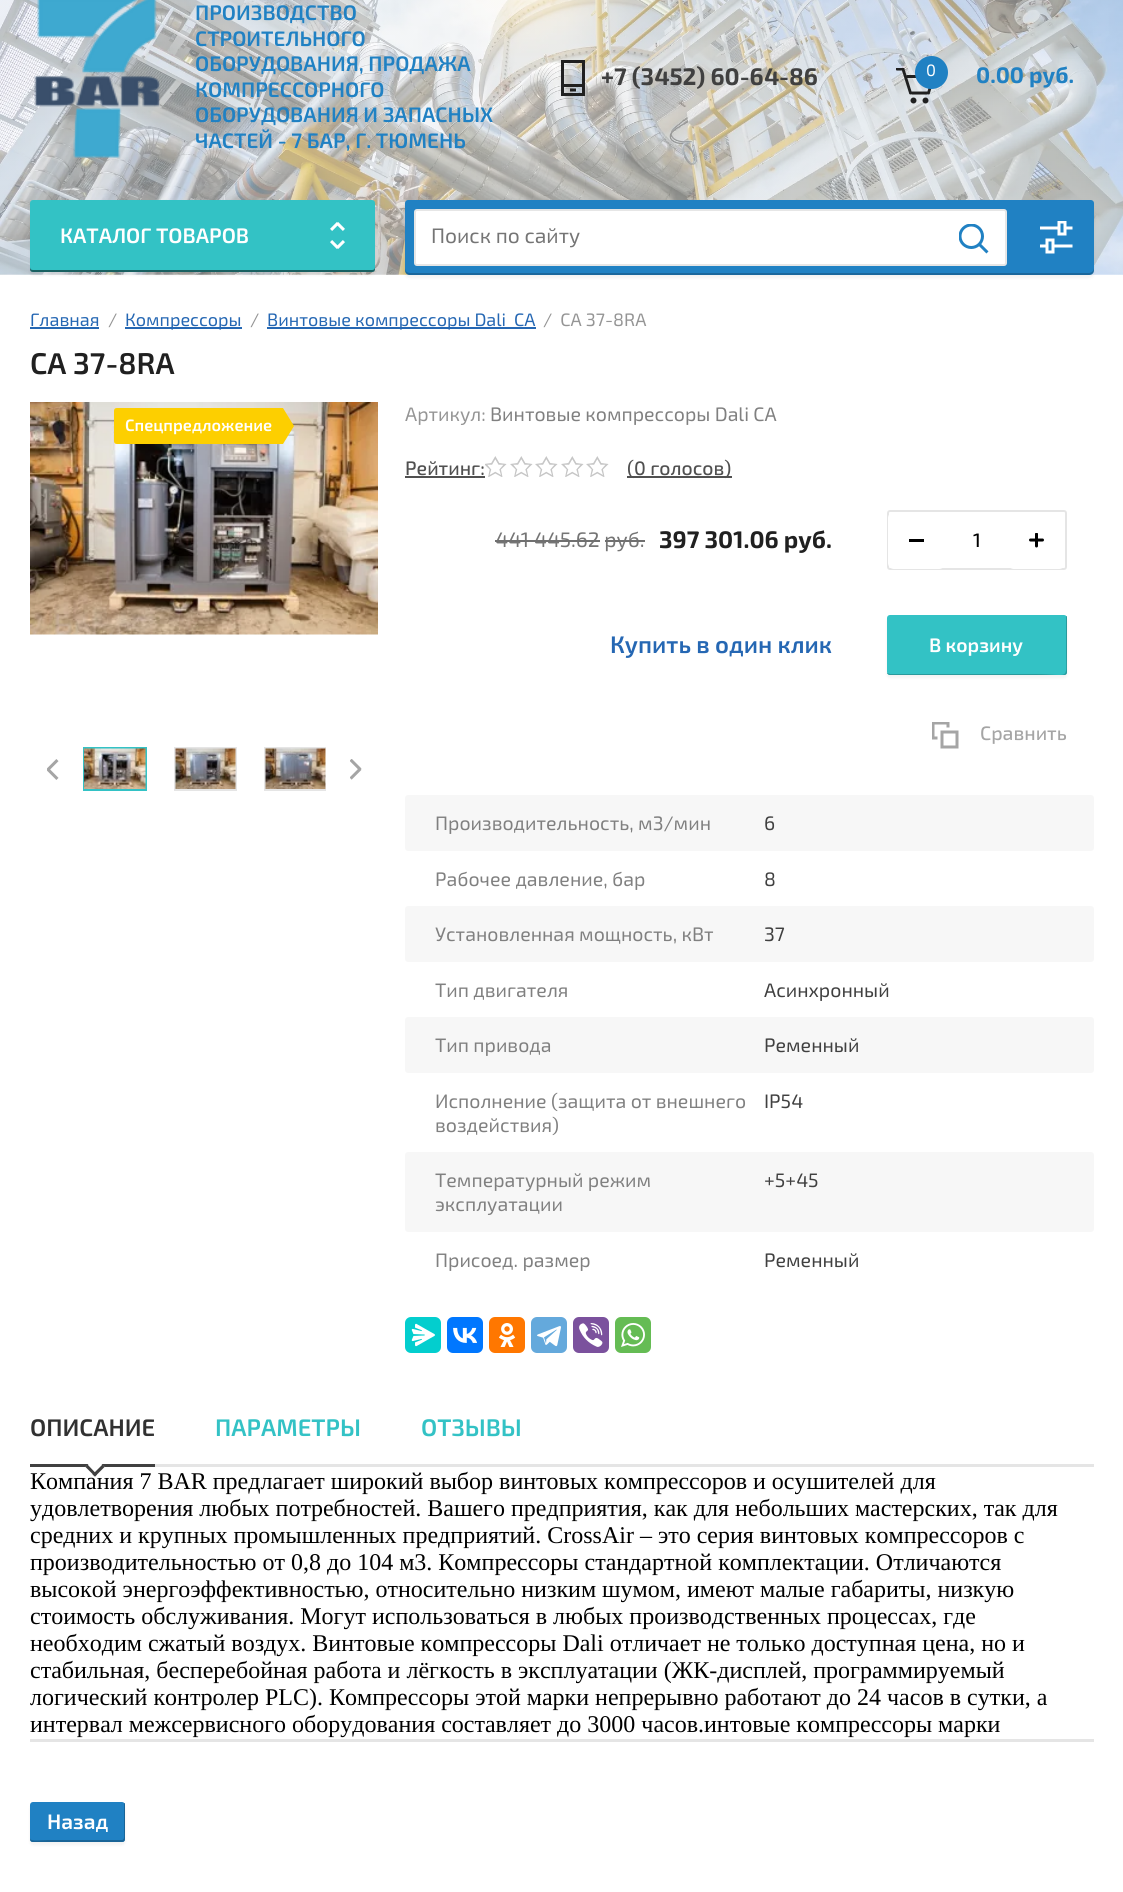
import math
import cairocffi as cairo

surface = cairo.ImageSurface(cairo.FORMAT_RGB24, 1123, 1892)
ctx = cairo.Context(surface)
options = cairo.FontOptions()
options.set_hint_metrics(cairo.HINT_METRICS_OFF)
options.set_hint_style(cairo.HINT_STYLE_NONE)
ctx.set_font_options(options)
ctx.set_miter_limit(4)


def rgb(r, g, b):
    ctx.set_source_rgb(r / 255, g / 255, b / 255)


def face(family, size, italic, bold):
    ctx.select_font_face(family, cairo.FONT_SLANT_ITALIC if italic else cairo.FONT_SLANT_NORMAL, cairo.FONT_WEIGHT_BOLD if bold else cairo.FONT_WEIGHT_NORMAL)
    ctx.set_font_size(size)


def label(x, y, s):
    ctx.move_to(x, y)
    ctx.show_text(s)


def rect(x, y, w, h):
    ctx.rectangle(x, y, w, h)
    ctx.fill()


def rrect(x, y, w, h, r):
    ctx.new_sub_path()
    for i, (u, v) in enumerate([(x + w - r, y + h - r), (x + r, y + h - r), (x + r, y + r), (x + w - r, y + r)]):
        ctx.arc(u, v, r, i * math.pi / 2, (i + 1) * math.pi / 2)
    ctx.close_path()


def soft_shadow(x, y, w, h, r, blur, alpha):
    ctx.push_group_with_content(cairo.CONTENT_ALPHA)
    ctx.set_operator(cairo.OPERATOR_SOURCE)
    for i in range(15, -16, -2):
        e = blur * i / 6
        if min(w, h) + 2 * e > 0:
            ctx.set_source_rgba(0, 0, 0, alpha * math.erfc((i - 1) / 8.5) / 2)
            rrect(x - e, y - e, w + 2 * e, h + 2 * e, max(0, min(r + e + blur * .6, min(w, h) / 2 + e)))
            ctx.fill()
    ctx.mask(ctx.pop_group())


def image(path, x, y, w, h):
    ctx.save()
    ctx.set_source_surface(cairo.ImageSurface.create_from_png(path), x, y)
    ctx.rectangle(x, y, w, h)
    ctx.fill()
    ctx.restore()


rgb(255, 255, 255)
ctx.paint()
image('image0.png', 0, 0, 1123, 275)
image('image1.png', 34, 0, 126, 158)
face('Exo 2 SemiBold', 21, 0, 0)
rgb(32, 129, 195)
label(195, 20, 'ПРОИЗВОДСТВО')
label(195, 46, 'СТРОИТЕЛЬНОГО')
label(195, 71, 'ОБОРУДОВАНИЯ, ПРОДАЖА')
label(195, 97, 'КОМПРЕССОРНОГО')
label(195, 122, 'ОБОРУДОВАНИЯ И ЗАПАСНЫХ')
label(195, 148, 'ЧАСТЕЙ - 7 БАР, Г. ТЮМЕНЬ')
image('image2.png', 561, 60, 24, 36)
face('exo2', 24, 0, 1)
rgb(64, 64, 64)
label(601, 85, '+7 (3452) 60-64-86')
image('image3.png', 896, 68, 36, 36)
rgb(32, 129, 195)
ctx.arc(931.5, 72.5, 16.5, 0, 2 * math.pi)
ctx.fill()
face('exo2', 16.5, 0, 0)
rgb(255, 255, 255)
label(926, 76, '0')
face('exo2', 22.5, 0, 1)
rgb(32, 129, 195)
label(976, 83, '0.00 руб.')
rgb(0, 0, 0)
soft_shadow(30, 203, 345, 72, 3, 1.5, 0.05)
rgb(51, 194, 197)
rrect(30, 200, 345, 72, 3)
ctx.fill()
image('image4.png', 330, 222, 15, 27)
ctx.set_source_rgba(0, 0, 0, 0.5)
ctx.new_path()
ctx.move_to(30, 267)
ctx.line_to(30, 269)
ctx.curve_to(30, 271, 31, 272, 33, 272)
ctx.line_to(372, 272)
ctx.curve_to(374, 272, 375, 271, 375, 269)
ctx.line_to(375, 267)
ctx.curve_to(375, 269, 374, 270, 372, 270)
ctx.line_to(33, 270)
ctx.curve_to(31, 270, 30, 269, 30, 267)
ctx.close_path()
ctx.fill()
face('Exo 2 SemiBold', 21, 0, 0)
rgb(255, 255, 255)
label(60, 243, 'КАТАЛОГ ТОВАРОВ')
rgb(0, 0, 0)
soft_shadow(405, 203, 689, 75, 5, 1.5, 0.05)
rgb(32, 129, 195)
ctx.new_path()
ctx.move_to(408, 200)
ctx.line_to(1091, 200)
ctx.curve_to(1092.5, 200, 1094, 201.5, 1094, 203)
ctx.line_to(1094, 270)
ctx.curve_to(1094, 273, 1092, 275, 1089, 275)
ctx.line_to(410, 275)
ctx.curve_to(407, 275, 405, 273, 405, 270)
ctx.line_to(405, 203)
ctx.curve_to(405, 201.5, 406.5, 200, 408, 200)
ctx.close_path()
ctx.fill()
ctx.set_source_rgba(0, 0, 0, 0.2)
ctx.new_path()
ctx.move_to(405, 268)
ctx.line_to(405, 270)
ctx.curve_to(405, 273, 407, 275, 410, 275)
ctx.line_to(1089, 275)
ctx.curve_to(1092, 275, 1094, 273, 1094, 270)
ctx.line_to(1094, 268)
ctx.curve_to(1094, 271, 1091, 273, 1089, 273)
ctx.line_to(410, 273)
ctx.curve_to(407, 273, 405, 271, 405, 268)
ctx.close_path()
ctx.fill()
rgb(255, 255, 255)
rrect(414, 209, 593, 57, 3)
ctx.fill()
rrect(415, 210, 591, 55, 2)
ctx.set_source_rgba(0, 0, 0, 0.1)
ctx.stroke()
face('exo2', 21, 0, 0)
rgb(117, 117, 117)
label(431, 243, 'Поиск по сайту')
image('image5.png', 959, 224, 30, 30)
image('image6.png', 1040, 221, 33, 33)
face('exo2', 18, 0, 0)
rgb(37, 103, 179)
label(30, 326, 'Главная')
rect(30, 327, 69, 2)
rgb(149, 149, 149)
label(108, 326, '/')
rgb(37, 103, 179)
rect(125, 327, 117, 2)
label(125, 326, 'Компрессоры')
rgb(149, 149, 149)
label(250, 326, '/')
rgb(37, 103, 179)
rect(267, 327, 269, 2)
label(267, 326, 'Винтовые компрессоры Dali  CA')
rgb(149, 149, 149)
label(543, 326, '/  CA 37-8RA')
face('Exo 2 SemiBold', 30, 0, 0)
rgb(32, 32, 32)
label(30, 374, 'CA 37-8RA')
image('image7.png', 30, 402, 348, 233)
rgb(253, 207, 0)
ctx.new_path()
ctx.move_to(283, 444)
ctx.line_to(117, 444)
ctx.curve_to(115, 444, 114, 443, 114, 441)
ctx.line_to(114, 411)
ctx.curve_to(114, 409, 115, 408, 117, 408)
ctx.line_to(283, 408)
ctx.line_to(294, 426)
ctx.close_path()
ctx.fill()
face('Exo 2 SemiBold', 16.5, 0, 0)
rgb(255, 255, 255)
label(125, 431, 'Спецпредложение')
ctx.rectangle(84, 748, 62, 42)
rgb(51, 194, 197)
ctx.stroke()
image('image8.png', 84, 748, 62, 41)
ctx.rectangle(175, 748, 61, 42)
rgb(229, 229, 229)
ctx.stroke()
image('image9.png', 175, 748, 61, 41)
ctx.save()
ctx.rectangle(83, 747, 243, 44)
ctx.clip()
ctx.rectangle(265, 748, 63, 42)
ctx.stroke()
ctx.restore()
image('image10.png', 265, 748, 61, 41)
image('image11.png', 47, 759, 12, 21)
image('image12.png', 350, 759, 12, 21)
face('exo2', 19.5, 0, 0)
rgb(149, 149, 149)
label(405, 421, 'Артикул:')
rgb(128, 128, 128)
label(490, 421, 'Винтовые компрессоры Dali CA')
face('Exo 2 Medium', 19.5, 0, 0)
rgb(80, 80, 80)
label(405, 475, 'Рейтинг:')
rect(405, 476, 80, 2)
image('image13.png', 485, 456, 124, 21)
rect(627, 476, 105, 2)
label(627, 475, '(0 голосов)')
face('exo2', 21, 0, 0)
rgb(117, 117, 117)
label(495, 547, '441 445.62 руб.')
rgb(112, 112, 112)
rect(495, 540, 105, 2)
rect(605, 540, 40, 2)
face('exo2', 24, 0, 1)
rgb(32, 32, 32)
label(659, 548, '397 301.06 руб.')
rrect(888, 511, 178, 58, 2)
rgb(229, 229, 229)
ctx.stroke()
rgb(255, 255, 255)
rrect(888, 512, 57, 57, 6)
ctx.fill()
rgb(0, 0, 0)
rect(909, 539, 15, 3)
face('Exo 2 Medium', 19.5, 0, 0)
label(973, 547, '1')
rgb(255, 255, 255)
rrect(1008, 512, 57, 57, 6)
ctx.fill()
image('image14.png', 1029, 533, 15, 15)
face('Exo 2 SemiBold', 24, 0, 0)
rgb(37, 103, 179)
label(610, 653, 'Купить в один клик')
rgb(0, 0, 0)
soft_shadow(887, 618, 180, 60, 3, 1.5, 0.05)
rgb(51, 194, 197)
rrect(887, 615, 180, 60, 3)
ctx.fill()
rgb(41, 154, 156)
ctx.new_path()
ctx.move_to(887, 673)
ctx.curve_to(887, 674, 889, 675, 890, 675)
ctx.line_to(1064, 675)
ctx.curve_to(1066, 675, 1067, 674, 1067, 672)
ctx.line_to(1067, 618)
ctx.curve_to(1067, 617, 1067, 616, 1066, 616)
ctx.line_to(1066, 652)
ctx.curve_to(1066, 682, 1071, 674, 1035, 674)
ctx.line_to(890, 674)
ctx.close_path()
ctx.fill()
face('Exo 2 SemiBold', 19.5, 0, 0)
rgb(255, 255, 255)
label(929, 652, 'В корзину')
image('image15.png', 932, 722, 27, 27)
face('Exo 2 Medium', 19.5, 0, 0)
rgb(165, 165, 165)
label(980, 740, 'Сравнить')
rgb(247, 247, 247)
rrect(405, 795, 689, 56, 3)
ctx.fill()
face('exo2', 19.5, 0, 0)
rgb(128, 128, 128)
label(435, 830, 'Производительность, м3/мин')
rgb(64, 64, 64)
label(764, 830, '6')
rgb(128, 128, 128)
label(435, 886, 'Рабочее давление, бар')
rgb(64, 64, 64)
label(764, 886, '8')
rgb(247, 247, 247)
rrect(405, 906, 689, 56, 3)
ctx.fill()
rgb(128, 128, 128)
label(435, 941, 'Установленная мощность, кВт')
rgb(64, 64, 64)
label(764, 941, '37')
rgb(128, 128, 128)
label(435, 997, 'Тип двигателя')
rgb(64, 64, 64)
label(764, 997, 'Асинхронный')
rgb(247, 247, 247)
rrect(405, 1017, 689, 56, 3)
ctx.fill()
rgb(128, 128, 128)
label(435, 1052, 'Тип привода')
rgb(64, 64, 64)
label(764, 1052, 'Ременный')
rgb(128, 128, 128)
label(435, 1108, 'Исполнение (защита от внешнего')
label(435, 1132, 'воздействия)')
rgb(64, 64, 64)
label(764, 1108, 'IP54')
rgb(247, 247, 247)
rrect(405, 1152, 689, 80, 3)
ctx.fill()
rgb(128, 128, 128)
label(435, 1187, 'Температурный режим')
label(435, 1211, 'эксплуатации')
rgb(64, 64, 64)
label(764, 1187, '+5+45')
rgb(128, 128, 128)
label(435, 1267, 'Присоед. размер')
rgb(64, 64, 64)
label(764, 1267, 'Ременный')
rgb(3, 206, 206)
rrect(405, 1317, 36, 36, 6)
ctx.fill()
image('image16.png', 411, 1323, 24, 24)
rgb(0, 119, 255)
rrect(447, 1317, 36, 36, 6)
ctx.fill()
image('image17.png', 453, 1327, 24, 16)
rgb(255, 119, 0)
rrect(489, 1317, 36, 36, 6)
ctx.fill()
image('image18.png', 499, 1323, 17, 24)
rgb(100, 169, 220)
rrect(531, 1317, 36, 36, 6)
ctx.fill()
image('image19.png', 537, 1326, 24, 21)
rgb(123, 81, 157)
rrect(573, 1317, 36, 36, 6)
ctx.fill()
image('image20.png', 579, 1323, 24, 24)
rgb(101, 188, 84)
rrect(615, 1317, 36, 36, 6)
ctx.fill()
image('image21.png', 621, 1323, 24, 24)
rgb(229, 229, 229)
rect(155, 1464, 939, 3)
rgb(64, 64, 64)
rect(30, 1464, 125, 3)
face('Exo 2 SemiBold', 24, 0, 0)
rgb(49, 49, 49)
label(30, 1436, 'ОПИСАНИЕ')
face('Liberation Serif', 24, 0, 0)
rgb(0, 0, 0)
label(30, 1489, 'Компания 7 BAR предлагает широкий выбор винтовых компрессоров и осушителей для')
rgb(255, 255, 255)
ctx.new_path()
ctx.move_to(95, 1476.5)
ctx.line_to(85.5, 1467)
ctx.line_to(95, 1457.5)
ctx.line_to(104.5, 1467)
ctx.close_path()
ctx.fill()
rgb(64, 64, 64)
ctx.new_path()
ctx.move_to(95, 1476.5)
ctx.line_to(85.5, 1467)
ctx.line_to(87.5, 1464.5)
ctx.line_to(97, 1474.5)
ctx.close_path()
ctx.fill()
ctx.new_path()
ctx.move_to(95, 1476.5)
ctx.line_to(92.5, 1474.5)
ctx.line_to(102.5, 1464.5)
ctx.line_to(104.5, 1467)
ctx.close_path()
ctx.fill()
face('Exo 2 SemiBold', 24, 0, 0)
rgb(51, 194, 197)
label(215, 1436, 'ПАРАМЕТРЫ')
label(421, 1436, 'ОТЗЫВЫ')
rgb(229, 229, 229)
rect(30, 1739, 1064, 3)
face('Liberation Serif', 24, 0, 0)
rgb(0, 0, 0)
label(30, 1516, 'удовлетворения любых потребностей. Вашего предприятия, как для небольших мастерских, так для')
label(30, 1543, 'средних и крупных промышленных предприятий. CrossAir – это серия винтовых компрессоров с')
label(30, 1570, 'производительностью от 0,8 до 104 м3. Компрессоры стандартной комплектации. Отличаются')
label(30, 1597, 'высокой энергоэффективностью, относительно низким шумом, имеют малые габариты, низкую')
label(30, 1624, 'стоимость обслуживания. Могут использоваться в любых производственных процессах, где')
label(30, 1651, 'необходим сжатый воздух. Винтовые компрессоры Dali отличает не только доступная цена, но и')
label(30, 1678, 'стабильная, бесперебойная работа и лёгкость в эксплуатации (ЖК-дисплей, программируемый')
label(30, 1705, 'логический контролер PLC). Компрессоры этой марки непрерывно работают до 24 часов в сутки, а')
label(30, 1732, 'интервал межсервисного оборудования составляет до 3000 часов.интовые компрессоры марки')
rgb(0, 0, 0)
soft_shadow(30, 1805, 95, 40, 3, 1.5, 0.05)
rgb(32, 129, 195)
rrect(30, 1802, 95, 40, 3)
ctx.fill()
rgb(25, 100, 151)
ctx.new_path()
ctx.move_to(30, 1838)
ctx.line_to(30, 1839)
ctx.curve_to(30, 1841, 31, 1842, 33, 1842)
ctx.line_to(122, 1842)
ctx.curve_to(124, 1842, 125, 1841, 125, 1839)
ctx.line_to(125, 1805)
ctx.curve_to(125, 1804, 125, 1803, 124, 1803)
ctx.line_to(124, 1832)
ctx.curve_to(124, 1833, 125, 1840, 122, 1840)
ctx.line_to(48, 1840)
ctx.curve_to(41, 1840, 30, 1842, 30, 1838)
ctx.close_path()
ctx.fill()
face('Exo 2 SemiBold', 21, 0, 0)
rgb(255, 255, 255)
label(47, 1829, 'Назад')
surface.write_to_png('render.png')
